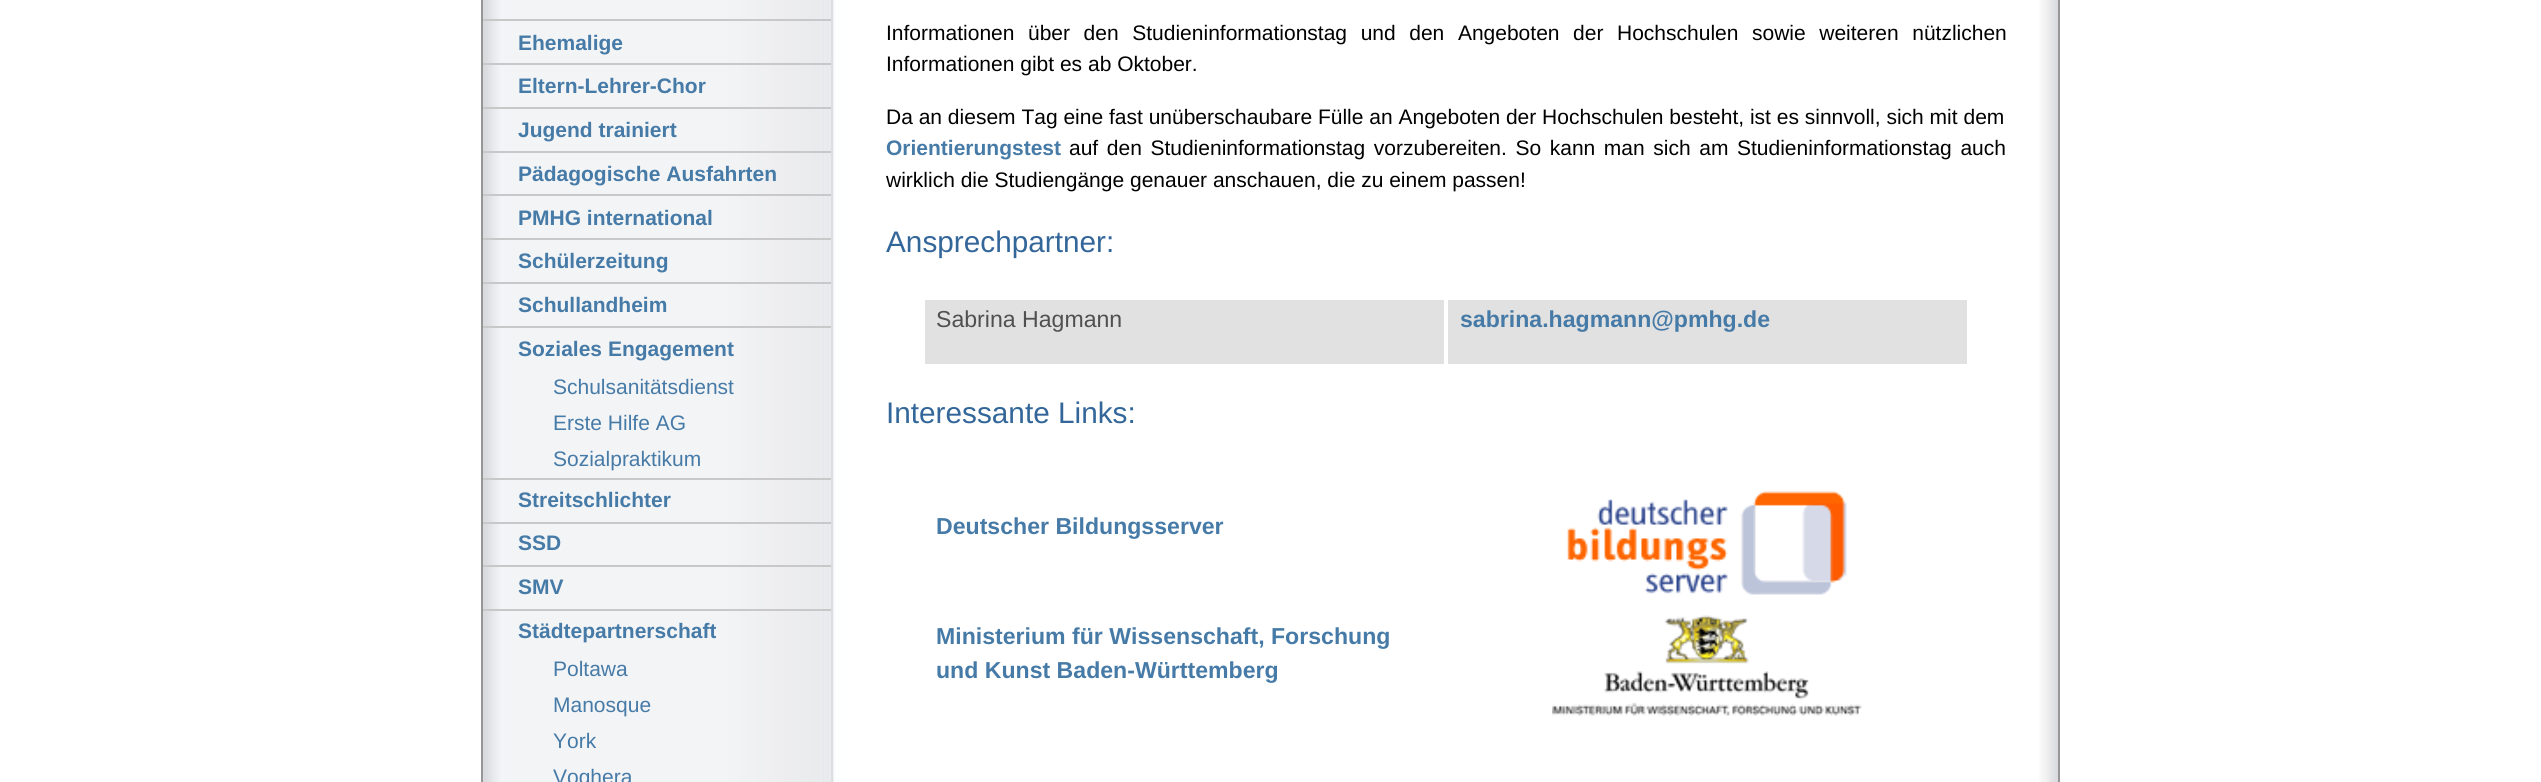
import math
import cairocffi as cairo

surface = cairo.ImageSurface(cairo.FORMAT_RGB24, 2541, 782)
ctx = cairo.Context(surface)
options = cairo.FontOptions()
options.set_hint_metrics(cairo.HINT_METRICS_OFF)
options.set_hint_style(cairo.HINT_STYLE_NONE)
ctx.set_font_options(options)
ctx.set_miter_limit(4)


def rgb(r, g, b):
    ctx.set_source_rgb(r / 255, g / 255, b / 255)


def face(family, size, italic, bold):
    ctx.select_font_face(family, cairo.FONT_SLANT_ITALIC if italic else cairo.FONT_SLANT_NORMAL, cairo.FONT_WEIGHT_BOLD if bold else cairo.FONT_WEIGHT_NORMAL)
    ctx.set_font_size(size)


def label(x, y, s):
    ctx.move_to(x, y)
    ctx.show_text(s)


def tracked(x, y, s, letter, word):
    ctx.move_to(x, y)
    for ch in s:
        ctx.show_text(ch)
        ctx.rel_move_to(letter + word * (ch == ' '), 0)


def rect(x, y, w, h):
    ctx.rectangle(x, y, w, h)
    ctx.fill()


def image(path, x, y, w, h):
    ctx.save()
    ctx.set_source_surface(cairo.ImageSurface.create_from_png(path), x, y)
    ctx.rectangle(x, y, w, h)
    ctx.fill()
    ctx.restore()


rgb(255, 255, 255)
ctx.paint()
ctx.rectangle(482, -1, 1577, 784)
rgb(150, 150, 150)
ctx.stroke()
image('image0.png', 483, 0, 1575, 782)
rgb(200, 200, 200)
rect(483, 19, 348, 2)
face('Liberation Sans', 21, 0, 1)
rgb(70, 122, 167)
label(518, 50, 'Ehemalige')
rgb(200, 200, 200)
rect(483, 63, 348, 2)
rgb(70, 122, 167)
label(518, 93, 'Eltern-Lehrer-Chor')
rgb(200, 200, 200)
rect(483, 107, 348, 2)
rgb(70, 122, 167)
label(518, 137, 'Jugend trainiert')
rgb(200, 200, 200)
rect(483, 151, 348, 2)
rgb(70, 122, 167)
label(518, 181, 'Pädagogische Ausfahrten')
rgb(200, 200, 200)
rect(483, 194, 348, 2)
rgb(70, 122, 167)
label(518, 225, 'PMHG international')
rgb(200, 200, 200)
rect(483, 238, 348, 2)
rgb(70, 122, 167)
label(518, 268, 'Schülerzeitung')
rgb(200, 200, 200)
rect(483, 282, 348, 2)
rgb(70, 122, 167)
label(518, 312, 'Schullandheim')
rgb(200, 200, 200)
rect(483, 326, 348, 2)
rgb(70, 122, 167)
label(518, 356, 'Soziales Engagement')
face('Liberation Sans', 21, 0, 0)
label(553, 394, 'Schulsanitätsdienst')
label(553, 430, 'Erste Hilfe AG')
label(553, 466, 'Sozialpraktikum')
rgb(200, 200, 200)
rect(483, 478, 348, 2)
face('Liberation Sans', 21, 0, 1)
rgb(70, 122, 167)
label(518, 507, 'Streitschlichter')
rgb(200, 200, 200)
rect(483, 522, 348, 2)
rgb(70, 122, 167)
label(518, 550, 'SSD')
rgb(200, 200, 200)
rect(483, 565, 348, 2)
rgb(70, 122, 167)
label(518, 594, 'SMV')
rgb(200, 200, 200)
rect(483, 609, 348, 2)
rgb(70, 122, 167)
label(518, 638, 'Städtepartnerschaft')
face('Liberation Sans', 21, 0, 0)
label(553, 676, 'Poltawa')
label(553, 712, 'Manosque')
label(553, 748, 'York')
label(553, 784, 'Voghera')
rgb(0, 0, 0)
tracked(886, 40, 'Informationen über den Studieninformationstag und den Angeboten der Hochschulen sowie weiteren nützlichen', 0, 7.75)
label(886, 71, 'Informationen gibt es ab Oktober.')
label(886, 124, 'Da an diesem Tag eine fast unüberschaubare Fülle an Angeboten der Hochschulen besteht, ist es sinnvoll, sich mit dem')
face('Liberation Sans', 21, 0, 1)
rgb(70, 122, 167)
label(886, 155, 'Orientierungstest')
face('Liberation Sans', 21, 0, 0)
rgb(0, 0, 0)
tracked(1069, 155, 'auf den Studieninformationstag vorzubereiten. So kann man sich am Studieninformationstag auch', 0, 2.75)
label(886, 187, 'wirklich die Studiengänge genauer anschauen, die zu einem passen!')
face('Liberation Sans', 29.75, 0, 0)
rgb(51, 102, 153)
label(886, 252, 'Ansprechpartner:')
rgb(225, 225, 225)
rect(925, 300, 1042, 64)
face('Liberation Sans', 23.1, 0, 0)
rgb(80, 80, 80)
label(936, 327, 'Sabrina Hagmann')
rgb(255, 255, 255)
rect(1444, 296, 4, 72)
face('Liberation Sans', 23.1, 0, 1)
rgb(70, 122, 167)
label(1460, 327, 'sabrina.hagmann@pmhg.de')
face('Liberation Sans', 29.75, 0, 0)
rgb(51, 102, 153)
label(886, 423, 'Interessante Links:')
face('Liberation Sans', 23.1, 0, 1)
rgb(70, 122, 167)
label(936, 534, 'Deutscher Bildungsserver')
image('image1.png', 1567, 491, 280, 104)
label(936, 644, 'Ministerium für Wissenschaft, Forschung')
label(936, 678, 'und Kunst Baden-Württemberg')
image('image2.png', 1552, 615, 310, 101)
surface.write_to_png('render.png')
